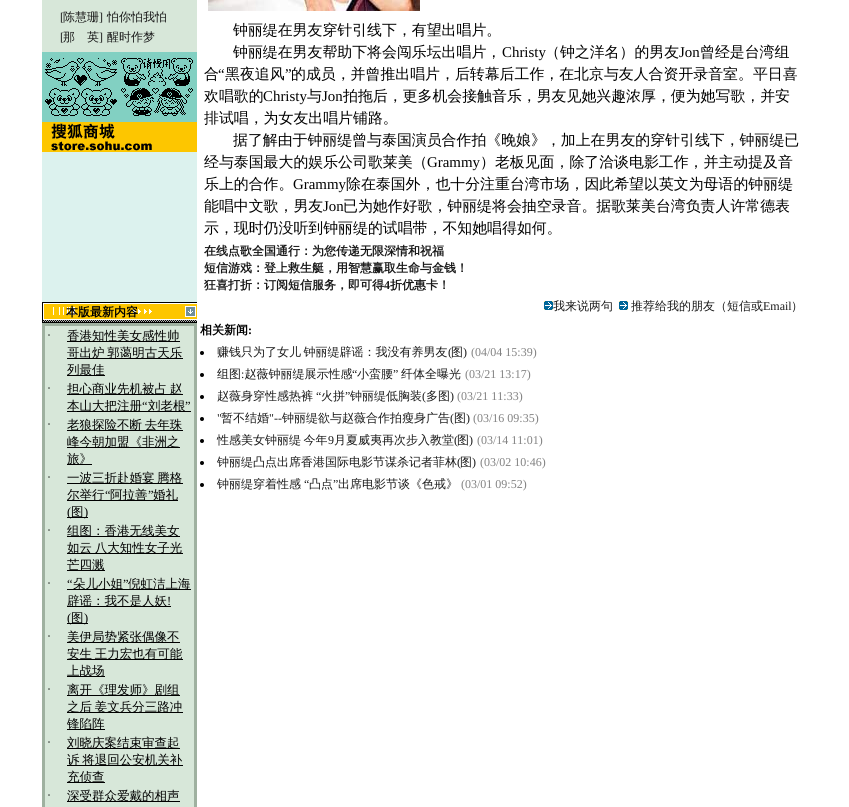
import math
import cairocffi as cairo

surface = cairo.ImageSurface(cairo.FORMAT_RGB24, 849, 807)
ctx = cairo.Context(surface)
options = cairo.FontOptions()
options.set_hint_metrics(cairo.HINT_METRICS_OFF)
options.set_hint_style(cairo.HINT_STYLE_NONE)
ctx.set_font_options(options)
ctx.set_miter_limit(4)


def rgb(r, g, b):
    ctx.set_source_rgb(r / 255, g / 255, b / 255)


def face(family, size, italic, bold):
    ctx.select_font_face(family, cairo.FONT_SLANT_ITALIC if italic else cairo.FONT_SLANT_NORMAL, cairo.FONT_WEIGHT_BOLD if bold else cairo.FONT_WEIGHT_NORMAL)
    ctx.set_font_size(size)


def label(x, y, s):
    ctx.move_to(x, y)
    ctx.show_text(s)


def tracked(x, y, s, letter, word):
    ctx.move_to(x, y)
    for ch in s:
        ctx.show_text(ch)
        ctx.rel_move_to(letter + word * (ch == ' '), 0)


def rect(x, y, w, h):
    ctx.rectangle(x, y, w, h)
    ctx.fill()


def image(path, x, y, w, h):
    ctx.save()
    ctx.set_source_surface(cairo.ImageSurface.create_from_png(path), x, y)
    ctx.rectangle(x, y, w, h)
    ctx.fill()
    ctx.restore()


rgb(255, 255, 255)
ctx.paint()
rgb(159, 177, 160)
rect(42, 323, 155, 484)
rgb(215, 231, 217)
rect(42, 0, 155, 52)
face('Liberation Serif', 12, 0, 0)
rgb(25, 25, 25)
label(60, 21, '[')
face('WenQuanYi Zen Hei Medium', 12, 0, 0)
label(63, 21, '陈慧珊')
face('Liberation Serif', 12, 0, 0)
label(99, 21, ']')
face('WenQuanYi Zen Hei Medium', 12, 0, 0)
label(107, 21, '怕你怕我怕')
face('Liberation Serif', 12, 0, 0)
label(60, 41, '[')
face('WenQuanYi Zen Hei Medium', 12, 0, 0)
label(63, 41, '那　英')
face('Liberation Serif', 12, 0, 0)
label(99, 41, ']')
face('WenQuanYi Zen Hei Medium', 12, 0, 0)
label(107, 41, '醒时作梦')
rgb(130, 208, 194)
rect(42, 52, 155, 70)
image('image0.png', 45, 58, 72, 28)
image('image1.png', 121, 58, 72, 28)
image('image2.png', 45, 88, 72, 28)
image('image3.png', 121, 88, 72, 28)
rgb(220, 242, 238)
rect(42, 152, 155, 150)
image('image4.png', 42, 122, 155, 30)
image('image5.png', 42, 302, 155, 21)
face('WenQuanYi Zen Hei', 12, 0, 1)
rgb(0, 0, 0)
label(66, 316, '本版最新内容')
rgb(215, 231, 217)
rect(45, 326, 149, 481)
face('Liberation Serif', 12, 0, 0)
rgb(0, 0, 0)
label(47, 339, '·')
rect(67, 341, 113, 1)
face('WenQuanYi Zen Hei Medium', 12.5, 0, 0)
label(67, 340, '香港知性美女感性帅')
rect(67, 358, 116, 1)
tracked(67, 357, '哥出炉 郭蔼明古天乐', 0, -1)
rect(67, 375, 38, 1)
label(67, 374, '列最佳')
face('Liberation Serif', 12, 0, 0)
label(47, 392, '·')
rect(67, 394, 116, 1)
face('WenQuanYi Zen Hei Medium', 12.5, 0, 0)
tracked(67, 393, '担心商业先机被占 赵', 0, -1)
rect(67, 411, 124, 1)
label(67, 410, '本山大把注册')
face('Liberation Serif', 12.5, 0, 0)
label(142, 410, '“')
face('WenQuanYi Zen Hei Medium', 12.5, 0, 0)
label(148, 410, '刘老根')
face('Liberation Serif', 12.5, 0, 0)
label(185, 410, '”')
face('Liberation Serif', 12, 0, 0)
label(47, 428, '·')
rect(67, 430, 116, 1)
face('WenQuanYi Zen Hei Medium', 12.5, 0, 0)
tracked(67, 429, '老狼探险不断 去年珠', 0, -1)
rect(67, 447, 113, 1)
label(67, 446, '峰今朝加盟《非洲之')
rect(67, 464, 25, 1)
label(67, 463, '旅》')
face('Liberation Serif', 12, 0, 0)
label(47, 481, '·')
rect(67, 483, 116, 1)
face('WenQuanYi Zen Hei Medium', 12.5, 0, 0)
tracked(67, 482, '一波三折赴婚宴 腾格', 0, -1)
rect(67, 500, 111, 1)
label(67, 499, '尔举行')
face('Liberation Serif', 12.5, 0, 0)
label(105, 499, '“')
face('WenQuanYi Zen Hei Medium', 12.5, 0, 0)
label(110, 499, '阿拉善')
face('Liberation Serif', 12.5, 0, 0)
label(148, 499, '”')
face('WenQuanYi Zen Hei Medium', 12.5, 0, 0)
label(153, 499, '婚礼')
rect(67, 517, 21, 1)
face('Liberation Serif', 12.5, 0, 0)
label(67, 516, '(')
face('WenQuanYi Zen Hei Medium', 12.5, 0, 0)
label(71, 516, '图')
face('Liberation Serif', 12.5, 0, 0)
label(84, 516, ')')
face('Liberation Serif', 12, 0, 0)
label(47, 534, '·')
rect(67, 536, 113, 1)
face('WenQuanYi Zen Hei Medium', 12.5, 0, 0)
label(67, 535, '组图：香港无线美女')
rect(67, 553, 116, 1)
tracked(67, 552, '如云 八大知性女子光', 0, -1)
rect(67, 570, 38, 1)
label(67, 569, '芒四溅')
face('Liberation Serif', 12, 0, 0)
label(47, 587, '·')
face('Liberation Serif', 12.5, 0, 0)
label(67, 588, '“')
rect(67, 589, 124, 1)
face('WenQuanYi Zen Hei Medium', 12.5, 0, 0)
label(73, 588, '朵儿小姐')
face('Liberation Serif', 12.5, 0, 0)
label(123, 588, '”')
face('WenQuanYi Zen Hei Medium', 12.5, 0, 0)
label(128, 588, '倪虹洁上海')
rect(67, 606, 104, 1)
label(67, 605, '辟谣：我不是人妖')
face('Liberation Serif', 12.5, 0, 0)
label(167, 605, '!')
rect(67, 623, 21, 1)
label(67, 622, '(')
face('WenQuanYi Zen Hei Medium', 12.5, 0, 0)
label(71, 622, '图')
face('Liberation Serif', 12.5, 0, 0)
label(84, 622, ')')
face('Liberation Serif', 12, 0, 0)
label(47, 640, '·')
rect(67, 642, 113, 1)
face('WenQuanYi Zen Hei Medium', 12.5, 0, 0)
label(67, 641, '美伊局势紧张偶像不')
rect(67, 659, 116, 1)
tracked(67, 658, '安生 王力宏也有可能', 0, -1)
rect(67, 676, 38, 1)
label(67, 675, '上战场')
face('Liberation Serif', 12, 0, 0)
label(47, 693, '·')
rect(67, 695, 113, 1)
face('WenQuanYi Zen Hei Medium', 12.5, 0, 0)
label(67, 694, '离开《理发师》剧组')
rect(67, 712, 116, 1)
tracked(67, 711, '之后 姜文兵分三路冲', 0, -1)
rect(67, 729, 38, 1)
label(67, 728, '锋陷阵')
face('Liberation Serif', 12, 0, 0)
label(47, 746, '·')
rect(67, 748, 113, 1)
face('WenQuanYi Zen Hei Medium', 12.5, 0, 0)
label(67, 747, '刘晓庆案结束审查起')
rect(67, 765, 116, 1)
tracked(67, 764, '诉 将退回公安机关补', 0, -1)
rect(67, 782, 38, 1)
label(67, 781, '充侦查')
face('Liberation Serif', 12, 0, 0)
label(47, 799, '·')
rect(67, 801, 113, 1)
face('WenQuanYi Zen Hei Medium', 12.5, 0, 0)
label(67, 800, '深受群众爱戴的相声')
image('image6.png', 208, 0, 212, 11)
face('WenQuanYi Zen Hei Medium', 14.9, 0, 0)
label(233, 35, '钟丽缇在男友穿针引线下，有望出唱片。')
label(233, 57, '钟丽缇在男友帮助下将会闯乐坛出唱片，')
face('Liberation Serif', 14.9, 0, 0)
label(502, 57, 'Christy')
face('WenQuanYi Zen Hei Medium', 14.9, 0, 0)
label(545, 57, '（钟之洋名）的男友')
face('Liberation Serif', 14.9, 0, 0)
label(679, 57, 'Jon')
face('WenQuanYi Zen Hei Medium', 14.9, 0, 0)
label(700, 57, '曾经是台湾组')
label(204, 79, '合')
face('Liberation Serif', 14.9, 0, 0)
label(218, 79, '“')
face('WenQuanYi Zen Hei Medium', 14.9, 0, 0)
label(225, 79, '黑夜追风')
face('Liberation Serif', 14.9, 0, 0)
label(285, 79, '”')
face('WenQuanYi Zen Hei Medium', 14.9, 0, 0)
label(291, 79, '的成员，并曾推出唱片，后转幕后工作，在北京与友人合资开录音室。平日喜')
label(204, 101, '欢唱歌的')
face('Liberation Serif', 14.9, 0, 0)
label(263, 101, 'Christy')
face('WenQuanYi Zen Hei Medium', 14.9, 0, 0)
label(307, 101, '与')
face('Liberation Serif', 14.9, 0, 0)
label(322, 101, 'Jon')
face('WenQuanYi Zen Hei Medium', 14.9, 0, 0)
label(343, 101, '拍拖后，更多机会接触音乐，男友见她兴趣浓厚，便为她写歌，并安')
label(204, 123, '排试唱，为女友出唱片铺路。')
label(233, 145, '据了解由于钟丽缇曾与泰国演员合作拍《晚娘》，加上在男友的穿针引线下，钟丽缇已')
label(204, 167, '经与泰国最大的娱乐公司歌莱美（')
face('Liberation Serif', 14.9, 0, 0)
label(427, 167, 'Grammy')
face('WenQuanYi Zen Hei Medium', 14.9, 0, 0)
label(480, 167, '）老板见面，除了洽谈电影工作，并主动提及音')
label(204, 189, '乐上的合作。')
face('Liberation Serif', 14.9, 0, 0)
label(293, 189, 'Grammy')
face('WenQuanYi Zen Hei Medium', 14.9, 0, 0)
label(346, 189, '除在泰国外，也十分注重台湾市场，因此希望以英文为母语的钟丽缇')
label(204, 211, '能唱中文歌，男友')
face('Liberation Serif', 14.9, 0, 0)
label(323, 211, 'Jon')
face('WenQuanYi Zen Hei Medium', 14.9, 0, 0)
label(343, 211, '已为她作好歌，钟丽缇将会抽空录音。据歌莱美台湾负责人许常德表')
label(204, 233, '示，现时仍没听到钟丽缇的试唱带，不知她唱得如何。')
face('WenQuanYi Zen Hei', 12, 0, 1)
rgb(25, 25, 25)
label(204, 255, '在线点歌全国通行：为您传递无限深情和祝福')
label(204, 272, '短信游戏：登上救生艇，用智慧赢取生命与金钱！')
label(204, 289, '狂喜打折：订阅短信服务，即可得')
face('Liberation Serif', 12, 0, 1)
label(384, 289, '4')
face('WenQuanYi Zen Hei', 12, 0, 1)
label(390, 289, '折优惠卡！')
image('image7.png', 544, 301, 9, 9)
face('WenQuanYi Zen Hei Medium', 12, 0, 0)
label(553, 310, '我来说两句')
image('image7.png', 619, 301, 9, 9)
label(631, 310, '推荐给我的朋友（短信或')
face('Liberation Serif', 12, 0, 0)
label(763, 310, 'Email')
face('WenQuanYi Zen Hei Medium', 12, 0, 0)
label(791, 310, '）')
face('WenQuanYi Zen Hei', 12, 0, 1)
rgb(0, 0, 0)
label(200, 334, '相关新闻')
face('Liberation Serif', 12, 0, 1)
label(248, 334, ':')
ctx.new_path()
ctx.arc(202, 353, 2, 0, 2 * math.pi)
ctx.fill()
face('WenQuanYi Zen Hei Medium', 12, 0, 0)
rgb(25, 25, 25)
tracked(217, 356, '赚钱只为了女儿 钟丽缇辟谣：我没有养男友', 0, -1)
face('Liberation Serif', 12, 0, 0)
label(448, 356, '(')
face('WenQuanYi Zen Hei Medium', 12, 0, 0)
label(451, 356, '图')
face('Liberation Serif', 12, 0, 0)
label(463, 356, ')')
rgb(130, 130, 130)
label(471, 356, '(04/04 15:39)')
face('WenQuanYi Zen Hei Medium', 12, 0, 0)
rgb(25, 25, 25)
label(217, 378, '组图 赵薇钟丽缇展示性感')
face('Liberation Serif', 12, 0, 0)
label(352, 378, '“')
face('WenQuanYi Zen Hei Medium', 12, 0, 0)
label(357, 378, '小蛮腰')
face('Liberation Serif', 12, 0, 0)
label(393, 378, '”')
face('WenQuanYi Zen Hei Medium', 12, 0, 0)
label(401, 378, '纤体全曝光')
face('Liberation Serif', 12, 0, 0)
rgb(130, 130, 130)
label(465, 378, '(03/21 13:17)')
rgb(0, 0, 0)
ctx.new_path()
ctx.arc(202, 375, 2, 0, 2 * math.pi)
ctx.fill()
rgb(25, 25, 25)
label(241, 378, ':')
face('WenQuanYi Zen Hei Medium', 12, 0, 0)
label(217, 400, '赵薇身穿性感热裤')
face('Liberation Serif', 12, 0, 0)
label(316, 400, '“')
face('WenQuanYi Zen Hei Medium', 12, 0, 0)
label(321, 400, '火拼')
face('Liberation Serif', 12, 0, 0)
label(345, 400, '”')
face('WenQuanYi Zen Hei Medium', 12, 0, 0)
label(350, 400, '钟丽缇低胸装')
face('Liberation Serif', 12, 0, 0)
label(422, 400, '(')
face('WenQuanYi Zen Hei Medium', 12, 0, 0)
label(426, 400, '多图')
face('Liberation Serif', 12, 0, 0)
label(450, 400, ')')
rgb(130, 130, 130)
label(457, 400, '(03/21 11:33)')
rgb(0, 0, 0)
ctx.new_path()
ctx.arc(202, 397, 2, 0, 2 * math.pi)
ctx.fill()
ctx.arc(202, 419, 2, 0, 2 * math.pi)
ctx.fill()
rgb(25, 25, 25)
label(217, 422, '"')
face('WenQuanYi Zen Hei Medium', 12, 0, 0)
label(221, 422, '暂不结婚')
face('Liberation Serif', 12, 0, 0)
label(269, 422, '"--')
face('WenQuanYi Zen Hei Medium', 12, 0, 0)
label(282, 422, '钟丽缇欲与赵薇合作拍瘦身广告')
face('Liberation Serif', 12, 0, 0)
label(450, 422, '(')
face('WenQuanYi Zen Hei Medium', 12, 0, 0)
label(454, 422, '图')
face('Liberation Serif', 12, 0, 0)
label(466, 422, ')')
rgb(130, 130, 130)
label(473, 422, '(03/16 09:35)')
rgb(0, 0, 0)
ctx.new_path()
ctx.arc(202, 441, 2, 0, 2 * math.pi)
ctx.fill()
face('WenQuanYi Zen Hei Medium', 12, 0, 0)
rgb(25, 25, 25)
tracked(217, 444, '性感美女钟丽缇 今年', 0, -1)
face('Liberation Serif', 12, 0, 0)
label(328, 444, '9')
face('WenQuanYi Zen Hei Medium', 12, 0, 0)
label(334, 444, '月夏威夷再次步入教堂')
face('Liberation Serif', 12, 0, 0)
label(454, 444, '(')
face('WenQuanYi Zen Hei Medium', 12, 0, 0)
label(457, 444, '图')
face('Liberation Serif', 12, 0, 0)
label(469, 444, ')')
rgb(130, 130, 130)
label(477, 444, '(03/14 11:01)')
rgb(0, 0, 0)
ctx.new_path()
ctx.arc(202, 463, 2, 0, 2 * math.pi)
ctx.fill()
face('WenQuanYi Zen Hei Medium', 12, 0, 0)
rgb(25, 25, 25)
label(217, 466, '钟丽缇凸点出席香港国际电影节谋杀记者菲林')
face('Liberation Serif', 12, 0, 0)
label(457, 466, '(')
face('WenQuanYi Zen Hei Medium', 12, 0, 0)
label(460, 466, '图')
face('Liberation Serif', 12, 0, 0)
label(472, 466, ')')
rgb(130, 130, 130)
label(480, 466, '(03/02 10:46)')
face('WenQuanYi Zen Hei Medium', 12, 0, 0)
rgb(25, 25, 25)
label(217, 488, '钟丽缇穿着性感')
face('Liberation Serif', 12, 0, 0)
label(304, 488, '“')
face('WenQuanYi Zen Hei Medium', 12, 0, 0)
label(309, 488, '凸点')
face('Liberation Serif', 12, 0, 0)
label(333, 488, '”')
face('WenQuanYi Zen Hei Medium', 12, 0, 0)
label(338, 488, '出席电影节谈《色戒》')
face('Liberation Serif', 12, 0, 0)
rgb(130, 130, 130)
label(461, 488, '(03/01 09:52)')
rgb(0, 0, 0)
ctx.new_path()
ctx.arc(202, 485, 2, 0, 2 * math.pi)
ctx.fill()
surface.write_to_png('render.png')
